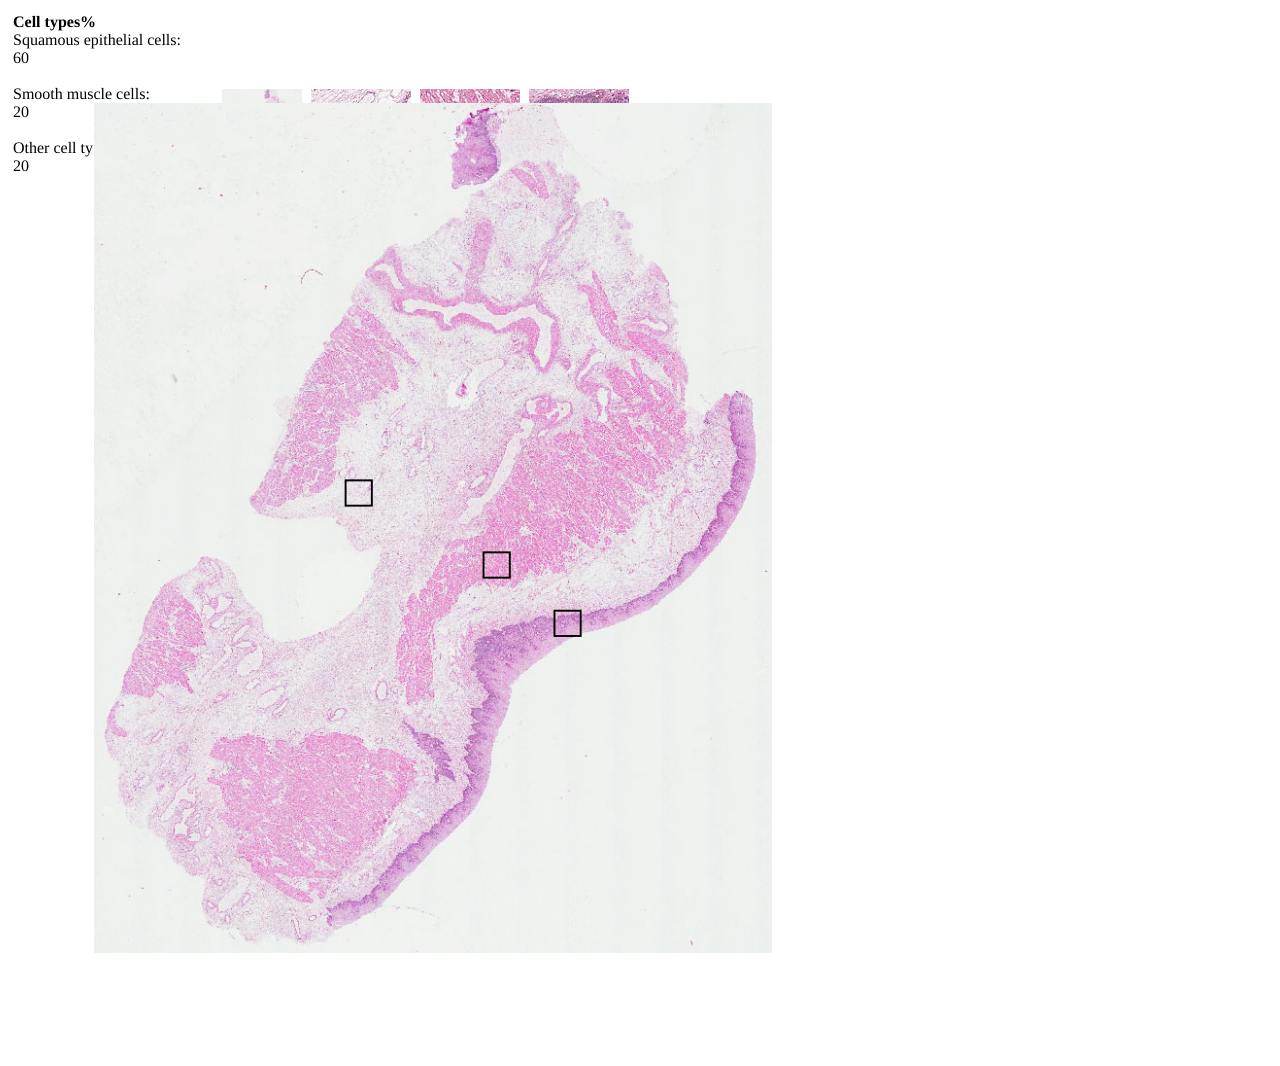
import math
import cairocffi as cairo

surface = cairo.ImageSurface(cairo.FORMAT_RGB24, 1280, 1066)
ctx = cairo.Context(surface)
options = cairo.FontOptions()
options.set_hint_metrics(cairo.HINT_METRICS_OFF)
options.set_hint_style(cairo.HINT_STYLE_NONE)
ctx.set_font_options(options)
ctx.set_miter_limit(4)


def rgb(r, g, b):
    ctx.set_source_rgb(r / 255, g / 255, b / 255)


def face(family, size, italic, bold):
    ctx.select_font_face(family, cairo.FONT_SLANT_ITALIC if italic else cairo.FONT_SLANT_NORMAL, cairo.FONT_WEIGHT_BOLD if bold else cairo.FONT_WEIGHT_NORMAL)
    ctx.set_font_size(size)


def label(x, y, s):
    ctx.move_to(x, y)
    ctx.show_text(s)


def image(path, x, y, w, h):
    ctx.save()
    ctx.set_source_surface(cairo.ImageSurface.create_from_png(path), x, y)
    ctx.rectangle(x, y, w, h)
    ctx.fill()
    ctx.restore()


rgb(255, 255, 255)
ctx.paint()
face('Liberation Serif', 16, 0, 1)
rgb(0, 0, 0)
label(13, 27, 'Cell types%')
face('Liberation Serif', 16, 0, 0)
label(13, 45, 'Squamous epithelial cells:')
label(13, 63, '60')
label(13, 99, 'Smooth muscle cells:')
label(13, 117, '20')
label(13, 153, 'Other cell ty')
label(13, 171, '20')
image('image0.png', 222, 89, 80, 14)
image('image1.png', 311, 89, 100, 14)
image('image2.png', 420, 89, 100, 14)
image('image3.png', 529, 89, 100, 14)
image('image4.png', 94, 103, 678, 850)
surface.write_to_png('render.png')
